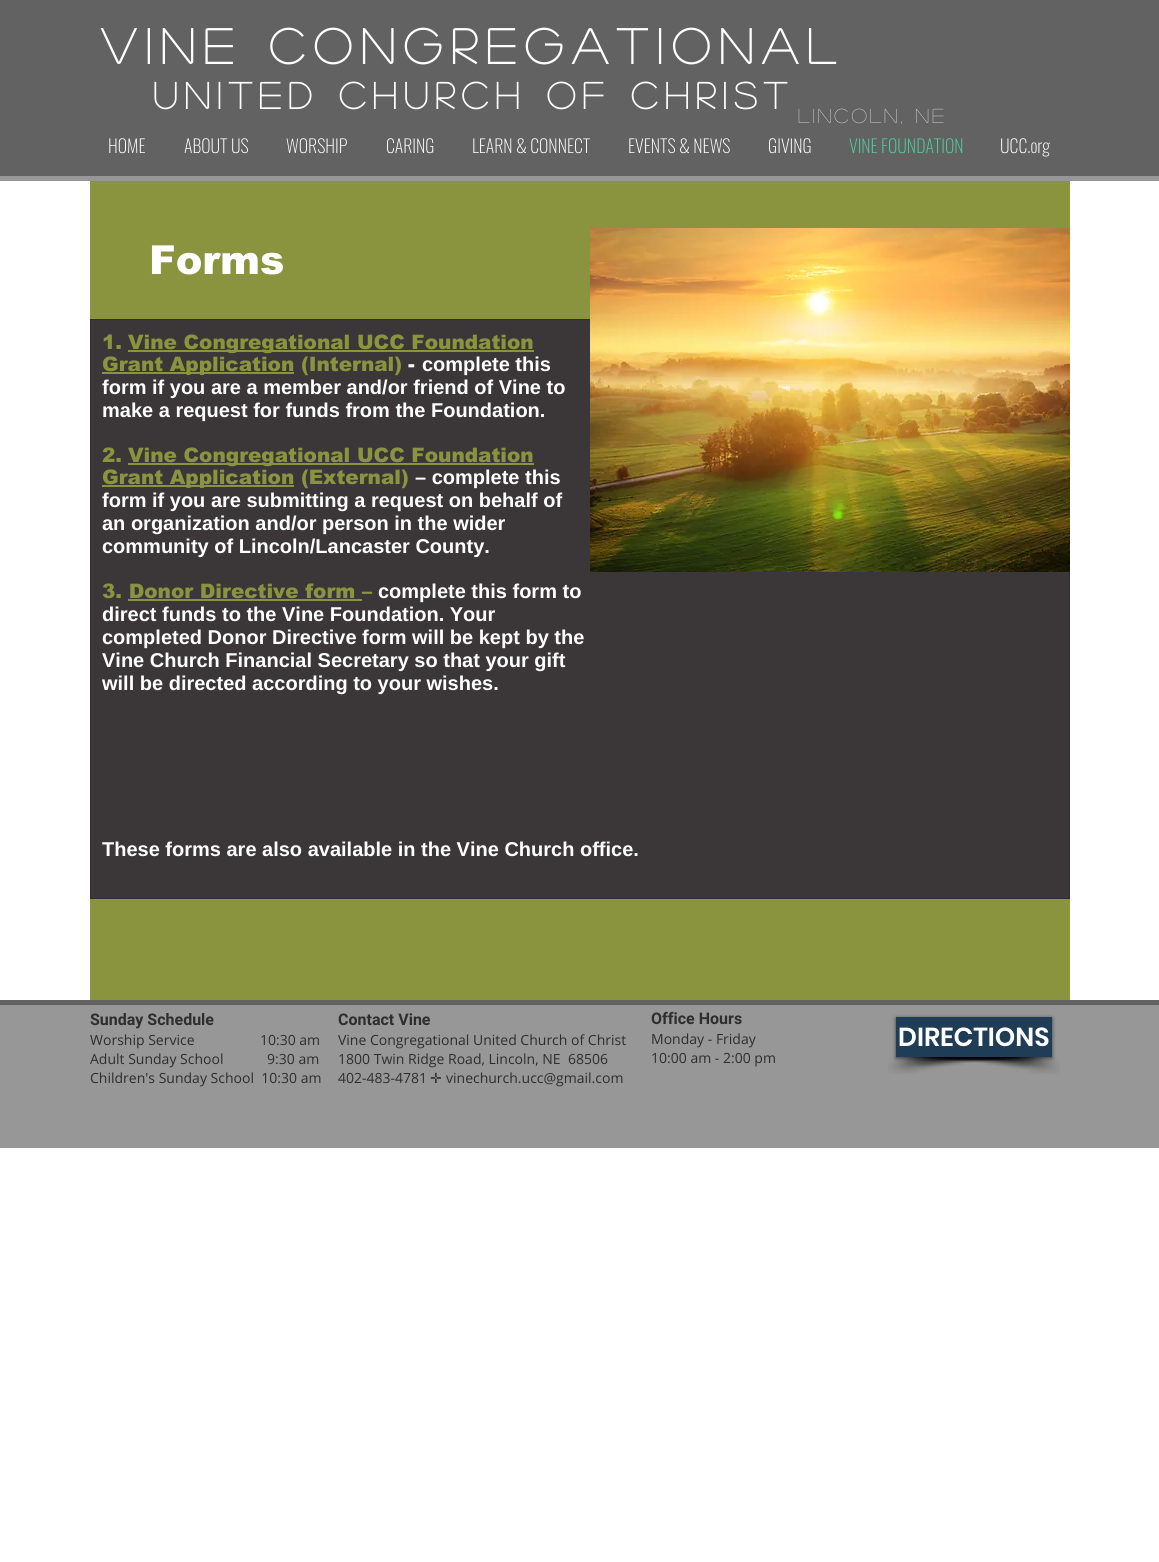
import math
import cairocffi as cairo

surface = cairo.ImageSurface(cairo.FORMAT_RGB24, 1159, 1562)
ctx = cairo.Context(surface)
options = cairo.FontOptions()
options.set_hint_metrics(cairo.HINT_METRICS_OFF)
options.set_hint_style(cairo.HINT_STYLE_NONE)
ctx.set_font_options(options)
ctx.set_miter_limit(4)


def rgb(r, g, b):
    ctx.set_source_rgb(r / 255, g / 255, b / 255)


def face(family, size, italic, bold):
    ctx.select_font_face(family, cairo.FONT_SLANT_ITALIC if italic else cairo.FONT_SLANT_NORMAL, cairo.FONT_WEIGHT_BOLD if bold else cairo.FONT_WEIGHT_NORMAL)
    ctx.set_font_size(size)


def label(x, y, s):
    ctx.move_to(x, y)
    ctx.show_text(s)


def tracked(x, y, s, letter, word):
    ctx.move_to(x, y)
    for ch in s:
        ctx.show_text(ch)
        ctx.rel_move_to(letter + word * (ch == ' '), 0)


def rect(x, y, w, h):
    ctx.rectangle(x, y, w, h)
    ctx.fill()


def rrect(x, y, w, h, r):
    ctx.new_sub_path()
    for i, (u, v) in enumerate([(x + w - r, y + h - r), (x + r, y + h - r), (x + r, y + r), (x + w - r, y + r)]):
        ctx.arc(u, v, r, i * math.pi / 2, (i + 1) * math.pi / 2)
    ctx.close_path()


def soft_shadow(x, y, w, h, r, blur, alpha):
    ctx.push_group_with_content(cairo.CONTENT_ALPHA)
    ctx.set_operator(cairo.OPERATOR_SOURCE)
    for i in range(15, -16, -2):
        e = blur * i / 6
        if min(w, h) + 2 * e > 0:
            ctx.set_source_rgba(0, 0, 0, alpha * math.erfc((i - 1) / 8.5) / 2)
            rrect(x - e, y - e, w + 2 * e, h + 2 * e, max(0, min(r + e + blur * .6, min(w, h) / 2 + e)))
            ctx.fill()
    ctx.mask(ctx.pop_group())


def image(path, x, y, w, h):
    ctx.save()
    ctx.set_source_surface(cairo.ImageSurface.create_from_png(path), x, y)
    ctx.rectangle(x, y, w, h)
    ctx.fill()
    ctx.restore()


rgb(255, 255, 255)
ctx.paint()
rgb(99, 98, 98)
rect(0, 0, 1159, 176)
rgb(151, 151, 151)
rect(0, 176, 1159, 5)
face('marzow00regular', 49, 0, 1)
rgb(255, 255, 255)
tracked(101, 64, 'Vine Congregational', 9.75, 0)
face('marzow00regular', 37, 0, 1)
tracked(153, 109, 'United Church of Christ', 7.4, 0)
face('marzow00regular', 20, 0, 0)
tracked(798, 123, 'Lincoln, NE', 3, 0)
face('Oswald ExtraLight', 18, 0, 0)
label(108, 153, 'HOME')
label(184, 153, 'ABOUT US')
label(286, 153, 'WORSHIP')
label(386, 153, 'CARING')
label(472, 153, 'LEARN & CONNECT')
label(628, 153, 'EVENTS & NEWS')
label(768, 153, 'GIVING')
rgb(75, 209, 160)
label(849, 153, 'VINE FOUNDATION')
rgb(255, 255, 255)
label(1000, 153, 'UCC.org')
rgb(138, 148, 63)
rect(90, 181, 980, 819)
face('arial Black', 40, 0, 0)
rgb(255, 255, 255)
label(149, 274, 'Forms')
rgb(59, 55, 56)
ctx.rectangle(90.5, 319.5, 979, 579)
ctx.fill_preserve()
rgb(47, 46, 46)
ctx.set_line_width(1)
ctx.stroke()
face('arial Black', 20, 0, 0)
rgb(138, 148, 63)
label(102, 349, '1.')
rect(128, 350, 406, 2)
label(128, 349, 'Vine Congregational UCC Foundation')
rect(102, 372, 192, 2)
label(102, 371, 'Grant Application (Internal)')
rgb(255, 255, 255)
label(408, 371, '-')
face('Liberation Sans', 20, 0, 1)
label(422, 371, 'complete this')
label(102, 394, 'form if you are a member and/or friend of Vine to')
label(102, 417, 'make a request for funds from the Foundation.')
face('arial Black', 20, 0, 0)
rgb(138, 148, 63)
label(102, 462, '2.')
rect(128, 463, 406, 2)
label(128, 462, 'Vine Congregational UCC Foundation')
rect(102, 485, 192, 2)
label(102, 484, 'Grant Application (External)')
face('Liberation Sans', 20, 0, 1)
rgb(255, 255, 255)
label(415, 484, '– complete this')
label(102, 507, 'form if you are submitting a request on behalf of')
label(102, 530, 'an organization and/or person in the wider')
label(102, 553, 'community of Lincoln/Lancaster County.')
face('arial Black', 20, 0, 0)
rgb(138, 148, 63)
label(102, 598, '3. Donor Directive form –')
rect(128, 599, 234, 2)
face('Liberation Sans', 20, 0, 1)
rgb(255, 255, 255)
label(378, 598, 'complete this form to')
label(102, 621, 'direct funds to the Vine Foundation. Your')
label(102, 644, 'completed Donor Directive form will be kept by the')
label(102, 667, 'Vine Church Financial Secretary so that your gift')
label(102, 690, 'will be directed according to your wishes.')
image('image0.png', 590, 228, 480, 344)
label(102, 856, 'These forms are also available in the Vine Church office.')
rgb(151, 151, 151)
rect(0, 1005, 1159, 143)
rgb(99, 98, 98)
rect(0, 1000, 1159, 5)
face('Roboto', 16, 0, 1)
rgb(47, 46, 46)
label(90, 1025, 'Sunday Schedule')
face('Open Sans', 14, 0, 0)
label(90, 1045, 'Worship Service                  10:30 am')
label(90, 1064, 'Adult Sunday School            9:30 am')
label(90, 1083, 'Children\'s Sunday School  10:30 am')
face('Roboto', 16, 0, 1)
label(338, 1025, 'Contact Vine')
face('Open Sans', 14, 0, 0)
label(338, 1045, 'Vine Congregational United Church of Christ')
label(338, 1064, '1800 Twin Ridge Road, Lincoln, NE  68506')
label(338, 1083, '402-483-4781')
face('DejaVu Sans', 14, 0, 0)
label(430, 1083, '✛')
face('Open Sans', 14, 0, 0)
label(446, 1083, 'vinechurch.ucc@gmail.com')
face('Roboto', 16, 0, 1)
label(651, 1024, 'Office Hours')
face('Open Sans', 14, 0, 0)
label(651, 1044, 'Monday - Friday')
label(651, 1063, '10:00 am - 2:00 pm')
image('image1.png', 888, 1057, 148, 17)
image('image2.png', 937, 1057, 123, 17)
rgb(0, 0, 0)
soft_shadow(896, 1018, 156, 40, 0, 2, 0.6)
rgb(31, 61, 86)
rect(896, 1017, 156, 40)
face('Poppins SemiBold', 26, 0, 0)
rgb(255, 255, 255)
label(898, 1046, 'DIRECTIONS')
surface.write_to_png('render.png')
